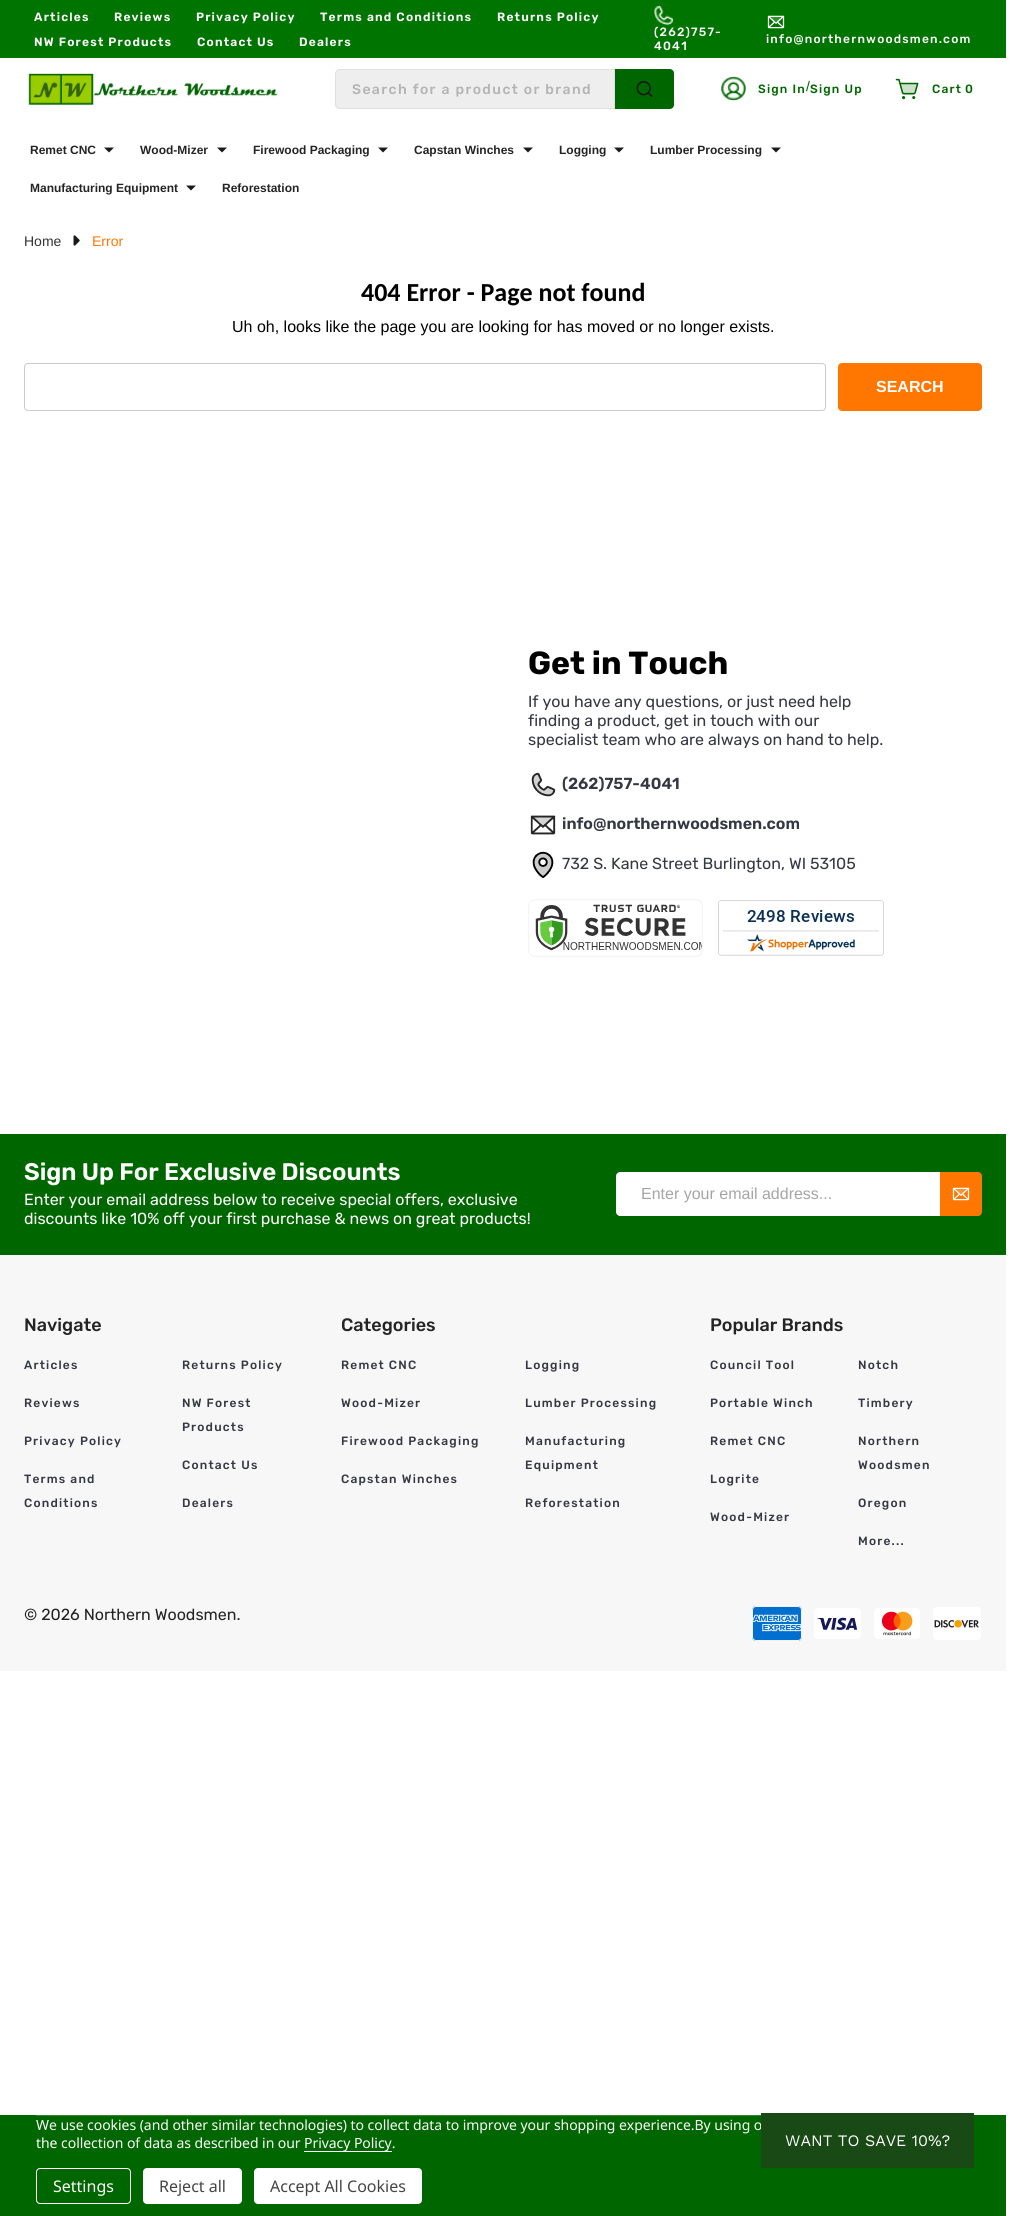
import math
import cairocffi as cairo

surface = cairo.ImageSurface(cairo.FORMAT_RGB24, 1021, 2216)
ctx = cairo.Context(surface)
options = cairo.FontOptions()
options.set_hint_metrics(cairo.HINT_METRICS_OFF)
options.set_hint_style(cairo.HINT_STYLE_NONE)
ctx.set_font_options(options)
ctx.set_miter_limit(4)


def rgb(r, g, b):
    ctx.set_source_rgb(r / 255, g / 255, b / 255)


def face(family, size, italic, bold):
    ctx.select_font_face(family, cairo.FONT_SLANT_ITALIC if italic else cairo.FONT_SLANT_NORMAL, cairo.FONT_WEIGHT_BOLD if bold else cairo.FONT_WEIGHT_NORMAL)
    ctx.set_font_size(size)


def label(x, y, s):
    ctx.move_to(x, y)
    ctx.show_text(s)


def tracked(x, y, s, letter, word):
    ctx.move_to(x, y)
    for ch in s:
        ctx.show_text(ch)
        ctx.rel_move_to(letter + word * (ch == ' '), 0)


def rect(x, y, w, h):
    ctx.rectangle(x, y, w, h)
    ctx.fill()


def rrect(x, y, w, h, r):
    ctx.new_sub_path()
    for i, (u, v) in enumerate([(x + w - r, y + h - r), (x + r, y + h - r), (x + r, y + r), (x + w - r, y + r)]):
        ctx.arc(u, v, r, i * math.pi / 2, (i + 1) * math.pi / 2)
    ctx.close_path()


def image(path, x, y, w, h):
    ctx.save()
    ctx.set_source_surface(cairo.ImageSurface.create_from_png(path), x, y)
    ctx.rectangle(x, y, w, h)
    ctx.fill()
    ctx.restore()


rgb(255, 255, 255)
ctx.paint()
rgb(0, 116, 0)
rect(0, 0, 1006, 58)
face('Rubik SemiBold', 12, 0, 0)
rgb(255, 255, 255)
tracked(34, 21, 'Articles', 1.2, 0)
tracked(114, 21, 'Reviews', 1.2, 0)
tracked(196, 21, 'Privacy Policy', 1.2, 0)
tracked(320, 21, 'Terms and Conditions', 1.2, 0)
tracked(497, 21, 'Returns Policy', 1.2, 0)
tracked(34, 46, 'NW Forest Products', 1.2, 0)
tracked(197, 46, 'Contact Us', 1.2, 0)
tracked(299, 46, 'Dealers', 1.2, 0)
image('image0.png', 654, 5, 20, 20)
face('Rubik Medium', 12, 0, 0)
tracked(654, 36, '(262)757-', 1.2, 0)
tracked(654, 50, '4041', 1.2, 0)
image('image1.png', 767, 15, 18, 14)
tracked(766, 43, 'info@northernwoodsmen.com', 1.2, 0)
image('image2.png', 28, 72, 250, 35)
rgb(238, 238, 238)
ctx.new_path()
ctx.move_to(340, 69.5)
ctx.line_to(614.5, 69.5)
ctx.line_to(614.5, 108.5)
ctx.line_to(340, 108.5)
ctx.curve_to(337.5, 108.5, 335.5, 106.5, 335.5, 104)
ctx.line_to(335.5, 74)
ctx.curve_to(335.5, 71.5, 337.5, 69.5, 340, 69.5)
ctx.close_path()
ctx.fill_preserve()
rgb(224, 224, 224)
ctx.set_line_width(1)
ctx.stroke()
face('Rubik Medium', 14, 0, 0)
rgb(180, 180, 180)
tracked(352, 94, 'Search for a product or brand', 1.4, 0)
rgb(0, 102, 0)
ctx.new_path()
ctx.move_to(616, 70)
ctx.line_to(670, 70)
ctx.curve_to(671.5, 70, 673, 71.5, 673, 73)
ctx.line_to(673, 105)
ctx.curve_to(673, 106.5, 671.5, 108, 670, 108)
ctx.line_to(616, 108)
ctx.close_path()
ctx.fill_preserve()
ctx.set_line_width(2)
ctx.stroke()
image('image3.png', 636, 81, 17, 16)
image('image4.png', 721, 76, 25, 25)
face('Rubik Medium', 12, 0, 0)
tracked(758, 93, 'Sign In', 1.2, 0)
face('Liberation Sans', 14, 0, 0)
label(806, 91, '/')
face('Rubik Medium', 12, 0, 0)
tracked(810, 93, 'Sign Up', 1.2, 0)
image('image5.png', 895, 78, 24, 22)
tracked(932, 93, 'Cart', 1.2, 0)
tracked(965, 93, '0', 1.2, 0)
face('Liberation Sans', 12, 0, 1)
rgb(36, 36, 36)
label(30, 154, 'Remet CNC')
rgb(26, 26, 26)
ctx.new_path()
ctx.move_to(104, 147.5)
ctx.line_to(109, 152.5)
ctx.line_to(114, 147.5)
ctx.close_path()
ctx.fill()
rgb(36, 36, 36)
label(140, 154, 'Wood-Mizer')
rgb(26, 26, 26)
ctx.new_path()
ctx.move_to(217, 147.5)
ctx.line_to(222, 152.5)
ctx.line_to(227, 147.5)
ctx.close_path()
ctx.fill()
rgb(36, 36, 36)
label(253, 154, 'Firewood Packaging')
rgb(26, 26, 26)
ctx.new_path()
ctx.move_to(378, 147.5)
ctx.line_to(383, 152.5)
ctx.line_to(388, 147.5)
ctx.close_path()
ctx.fill()
rgb(36, 36, 36)
label(414, 154, 'Capstan Winches')
rgb(26, 26, 26)
ctx.new_path()
ctx.move_to(523, 147.5)
ctx.line_to(528, 152.5)
ctx.line_to(533, 147.5)
ctx.close_path()
ctx.fill()
rgb(36, 36, 36)
label(559, 154, 'Logging')
rgb(26, 26, 26)
ctx.new_path()
ctx.move_to(614, 147.5)
ctx.line_to(619, 152.5)
ctx.line_to(624, 147.5)
ctx.close_path()
ctx.fill()
rgb(36, 36, 36)
label(650, 154, 'Lumber Processing')
rgb(26, 26, 26)
ctx.new_path()
ctx.move_to(771, 147.5)
ctx.line_to(776, 152.5)
ctx.line_to(781, 147.5)
ctx.close_path()
ctx.fill()
rgb(36, 36, 36)
label(30, 192, 'Manufacturing Equipment')
rgb(26, 26, 26)
ctx.new_path()
ctx.move_to(186, 185.5)
ctx.line_to(191, 190.5)
ctx.line_to(196, 185.5)
ctx.close_path()
ctx.fill()
rgb(36, 36, 36)
label(222, 192, 'Reforestation')
face('Liberation Sans', 14, 0, 0)
rgb(51, 51, 51)
label(24, 246, 'Home')
image('image6.png', 73, 235, 7, 11)
rgb(255, 119, 0)
label(92, 246, 'Error')
face('Carlito', 26, 0, 1)
rgb(0, 0, 0)
label(361, 301, '404 Error - Page not found')
face('Liberation Sans', 16, 0, 0)
label(232, 332, 'Uh oh, looks like the page you are looking for has moved or no longer exists.')
rrect(24.5, 363.5, 801, 47, 3.5)
rgb(204, 204, 204)
ctx.set_line_width(1)
ctx.stroke()
rgb(255, 119, 0)
rrect(839, 364, 142, 46, 3)
ctx.fill_preserve()
ctx.set_line_width(2)
ctx.stroke()
face('Liberation Sans', 16, 0, 1)
rgb(255, 255, 255)
label(876, 392, 'SEARCH')
rgb(247, 247, 247)
rect(0, 1255, 1006, 416)
face('Rubik', 32, 0, 1)
rgb(0, 0, 0)
label(528, 674, 'Get in Touch')
face('Rubik', 16, 0, 0)
rgb(53, 55, 66)
label(528, 707, 'If you have any questions, or just need help')
label(528, 726, 'finding a product, get in touch with our')
label(528, 745, 'specialist team who are always on hand to help.')
image('image7.png', 531, 772, 25, 25)
face('Rubik SemiBold', 16, 0, 0)
label(562, 789, '(262)757-4041')
image('image8.png', 530, 815, 26, 20)
label(562, 829, 'info@northernwoodsmen.com')
image('image9.png', 532, 851, 22, 28)
face('Rubik', 16, 0, 0)
label(562, 869, '732 S. Kane Street Burlington, WI 53105')
image('image10.png', 528, 899, 175, 58)
image('image11.png', 718, 900, 166, 56)
rgb(0, 102, 0)
rect(0, 1134, 1006, 121)
face('Rubik SemiBold', 24, 0, 0)
rgb(255, 255, 255)
label(24, 1180, 'Sign Up For Exclusive Discounts')
face('Rubik', 16, 0, 0)
label(24, 1205, 'Enter your email address below to receive special offers, exclusive')
label(24, 1224, 'discounts like 10% off your first purchase & news on great products!')
ctx.new_path()
ctx.move_to(620, 1172)
ctx.line_to(940, 1172)
ctx.line_to(940, 1216)
ctx.line_to(620, 1216)
ctx.curve_to(618, 1216, 616, 1214, 616, 1212)
ctx.line_to(616, 1176)
ctx.curve_to(616, 1174, 618, 1172, 620, 1172)
ctx.close_path()
ctx.fill()
face('Liberation Sans', 16, 0, 0)
rgb(165, 165, 165)
label(641, 1199, 'Enter your email address...')
rgb(255, 119, 0)
ctx.new_path()
ctx.move_to(940, 1172)
ctx.line_to(978, 1172)
ctx.curve_to(980, 1172, 982, 1174, 982, 1176)
ctx.line_to(982, 1212)
ctx.curve_to(982, 1214, 980, 1216, 978, 1216)
ctx.line_to(940, 1216)
ctx.close_path()
ctx.fill()
image('image12.png', 952, 1187, 18, 14)
face('Rubik Medium', 18, 0, 0)
rgb(36, 36, 36)
label(24, 1331, 'Navigate')
face('Rubik Medium', 12, 0, 0)
rgb(53, 55, 66)
tracked(24, 1369, 'Articles', 1.2, 0)
tracked(182, 1369, 'Returns Policy', 1.2, 0)
tracked(24, 1407, 'Reviews', 1.2, 0)
tracked(182, 1407, 'NW Forest', 1.2, 0)
tracked(182, 1431, 'Products', 1.2, 0)
tracked(24, 1445, 'Privacy Policy', 1.2, 0)
tracked(182, 1469, 'Contact Us', 1.2, 0)
tracked(24, 1483, 'Terms and', 1.2, 0)
tracked(24, 1507, 'Conditions', 1.2, 0)
tracked(182, 1507, 'Dealers', 1.2, 0)
face('Rubik Medium', 18, 0, 0)
rgb(36, 36, 36)
label(341, 1331, 'Categories')
face('Rubik Medium', 12, 0, 0)
rgb(53, 55, 66)
tracked(341, 1369, 'Remet CNC', 1.2, 0)
tracked(525, 1369, 'Logging', 1.2, 0)
tracked(341, 1407, 'Wood-Mizer', 1.2, 0)
tracked(525, 1407, 'Lumber Processing', 1.2, 0)
tracked(341, 1445, 'Firewood Packaging', 1.2, 0)
tracked(525, 1445, 'Manufacturing', 1.2, 0)
tracked(525, 1469, 'Equipment', 1.2, 0)
tracked(341, 1483, 'Capstan Winches', 1.2, 0)
tracked(525, 1507, 'Reforestation', 1.2, 0)
face('Rubik Medium', 18, 0, 0)
rgb(36, 36, 36)
label(710, 1331, 'Popular Brands')
face('Rubik Medium', 12, 0, 0)
rgb(53, 55, 66)
tracked(710, 1369, 'Council Tool', 1.2, 0)
tracked(858, 1369, 'Notch', 1.2, 0)
tracked(710, 1407, 'Portable Winch', 1.2, 0)
tracked(858, 1407, 'Timbery', 1.2, 0)
tracked(710, 1445, 'Remet CNC', 1.2, 0)
tracked(858, 1445, 'Northern', 1.2, 0)
tracked(858, 1469, 'Woodsmen', 1.2, 0)
tracked(710, 1483, 'Logrite', 1.2, 0)
tracked(858, 1507, 'Oregon', 1.2, 0)
tracked(710, 1521, 'Wood-Mizer', 1.2, 0)
tracked(858, 1545, 'More...', 1.2, 0)
face('Rubik', 16, 0, 0)
rgb(36, 36, 36)
label(24, 1620, '© 2026 Northern Woodsmen.')
image('image13.png', 752, 1606, 50, 35)
image('image14.png', 814, 1608, 47, 31)
image('image15.png', 874, 1608, 46, 31)
image('image16.png', 933, 1607, 48, 33)
rgb(0, 102, 0)
rect(0, 2115, 1006, 101)
rgb(51, 133, 51)
rect(36, 2115, 725, 1)
face('Noto Sans', 14, 0, 0)
rgb(255, 255, 255)
tracked(36, 2130, 'We use cookies (and other similar technologies) to collect data to improve your shopping experience.By using o', -0.05, 0)
tracked(36, 2148, 'the collection of data as described in our', -0.05, 0)
rect(304, 2151, 88, 1)
tracked(304, 2148, 'Privacy Policy.', -0.05, 0)
rrect(36.5, 2168.5, 94, 35, 3.5)
ctx.set_line_width(1)
ctx.stroke()
face('Noto Sans', 16, 0, 0)
label(53, 2192, 'Settings')
rrect(143, 2168, 99, 36, 4)
ctx.fill()
rgb(69, 69, 69)
label(159, 2192, 'Reject all')
rgb(255, 255, 255)
rrect(254, 2168, 168, 36, 4)
ctx.fill()
rgb(69, 69, 69)
label(270, 2192, 'Accept All Cookies')
rgb(25, 73, 21)
rect(761, 2113, 213, 55)
face('Work Sans', 16, 0, 0)
rgb(255, 255, 255)
label(785, 2146, 'WANT TO SAVE 10%?')
surface.write_to_png('render.png')
